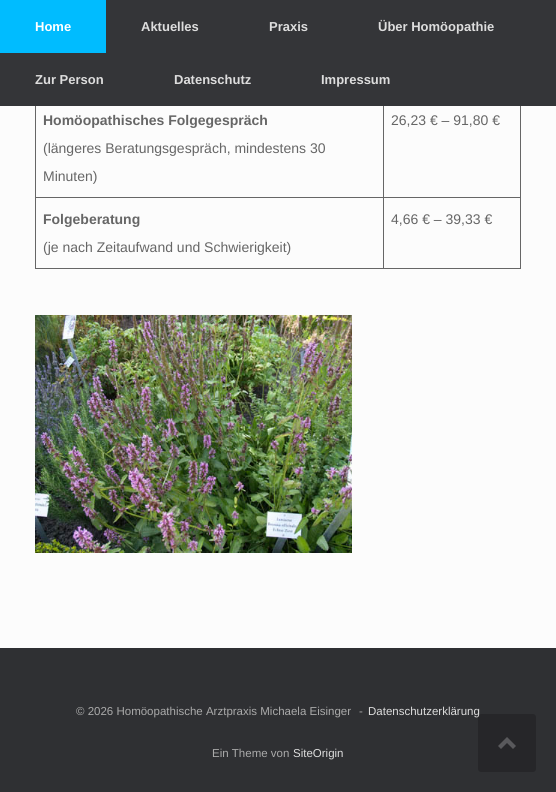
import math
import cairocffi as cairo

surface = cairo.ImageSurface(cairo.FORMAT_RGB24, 556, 792)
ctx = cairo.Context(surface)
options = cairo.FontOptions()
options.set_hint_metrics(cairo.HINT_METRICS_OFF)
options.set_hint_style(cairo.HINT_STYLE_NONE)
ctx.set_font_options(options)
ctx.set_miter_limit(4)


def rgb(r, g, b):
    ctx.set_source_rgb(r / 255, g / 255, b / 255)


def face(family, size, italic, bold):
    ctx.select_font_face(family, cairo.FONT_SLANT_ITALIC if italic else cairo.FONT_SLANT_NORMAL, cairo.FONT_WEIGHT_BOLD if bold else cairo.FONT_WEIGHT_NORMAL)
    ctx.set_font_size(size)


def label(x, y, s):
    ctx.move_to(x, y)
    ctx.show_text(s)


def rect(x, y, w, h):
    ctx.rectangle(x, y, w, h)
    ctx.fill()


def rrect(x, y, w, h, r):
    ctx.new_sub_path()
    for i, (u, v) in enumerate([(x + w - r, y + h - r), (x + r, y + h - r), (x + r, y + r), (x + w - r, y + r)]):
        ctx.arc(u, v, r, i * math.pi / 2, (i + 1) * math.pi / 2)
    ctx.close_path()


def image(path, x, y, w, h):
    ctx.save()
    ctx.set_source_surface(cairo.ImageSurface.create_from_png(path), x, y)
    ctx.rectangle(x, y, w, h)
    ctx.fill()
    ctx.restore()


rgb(47, 48, 51)
ctx.paint()
rgb(252, 252, 252)
rect(0, 106, 556, 542)
rgb(102, 102, 102)
rect(383, 197, 138, 1)
rect(520, 98, 1, 171)
rect(383, 268, 138, 1)
rect(383, 197, 1, 72)
rect(35, 197, 349, 1)
rect(383, 98, 1, 100)
rect(35, 268, 349, 1)
rect(35, 98, 1, 171)
rgb(52, 53, 56)
rect(0, 0, 556, 106)
rgb(0, 188, 255)
rect(0, 0, 106, 53)
face('Liberation Sans', 13, 0, 1)
rgb(255, 255, 255)
label(35, 31, 'Home')
rgb(221, 221, 221)
label(141, 31, 'Aktuelles')
label(269, 31, 'Praxis')
label(378, 31, 'Über Homöopathie')
label(35, 84, 'Zur Person')
label(174, 84, 'Datenschutz')
label(321, 84, 'Impressum')
face('Liberation Sans', 14, 0, 1)
rgb(102, 102, 102)
label(43, 125, 'Homöopathisches Folgegespräch')
face('Liberation Sans', 14, 0, 0)
label(43, 153, '(längeres Beratungsgespräch, mindestens 30')
label(43, 181, 'Minuten)')
label(391, 125, '26,23 € – 91,80 €')
face('Liberation Sans', 14, 0, 1)
label(43, 224, 'Folgeberatung')
face('Liberation Sans', 14, 0, 0)
label(43, 252, '(je nach Zeitaufwand und Schwierigkeit)')
label(391, 224, '4,66 € – 39,33 €')
image('image0.png', 35, 315, 317, 238)
face('Liberation Sans', 11.5, 0, 0)
rgb(170, 170, 170)
label(76, 715, '© 2026 Homöopathische Arztpraxis Michaela Eisinger')
label(359, 715, '-')
rgb(221, 221, 221)
label(368, 715, 'Datenschutzerklärung')
rgb(170, 170, 170)
label(212, 757, 'Ein Theme von')
rgb(221, 221, 221)
label(293, 757, 'SiteOrigin')
ctx.set_source_rgba(0, 0, 0, 0.2)
rrect(478, 714, 58, 58, 3)
ctx.fill()
rgb(89, 89, 92)
ctx.new_path()
ctx.move_to(516, 746)
ctx.line_to(507, 737)
ctx.line_to(498, 746)
ctx.line_to(501, 749)
ctx.line_to(507, 743)
ctx.line_to(513, 749)
ctx.close_path()
ctx.fill()
surface.write_to_png('render.png')
